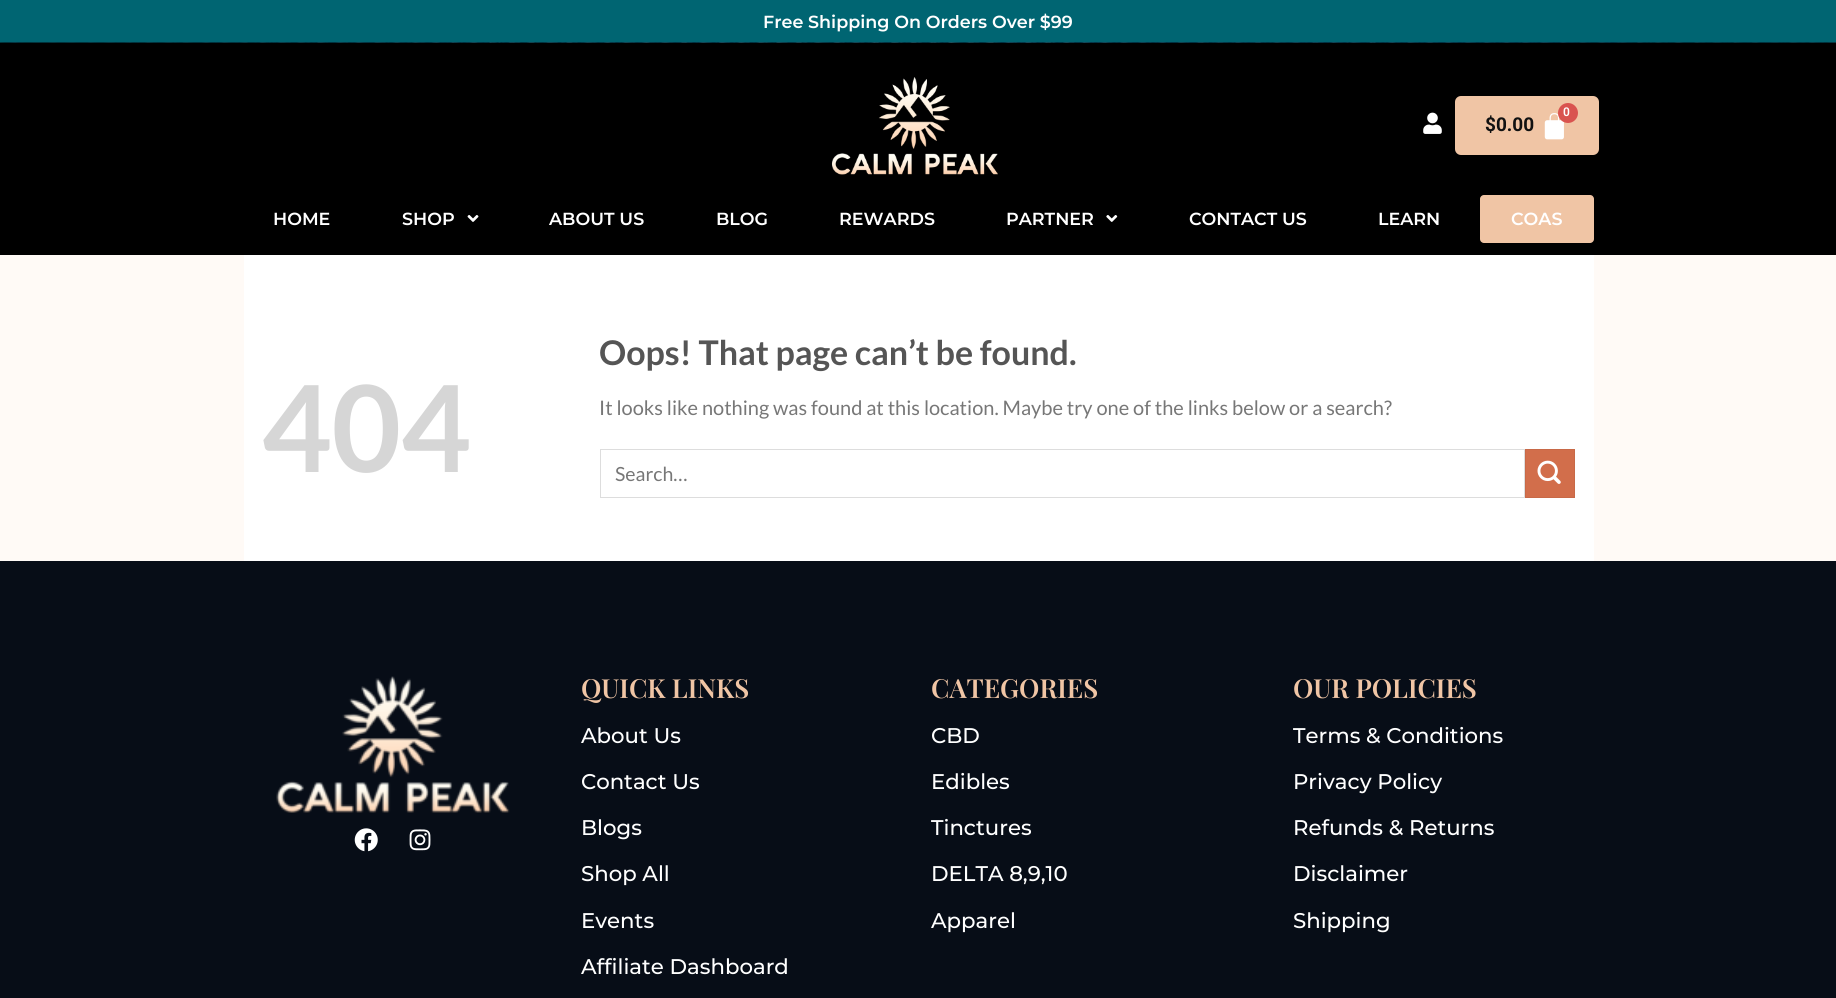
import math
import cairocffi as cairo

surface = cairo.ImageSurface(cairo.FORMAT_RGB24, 1836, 998)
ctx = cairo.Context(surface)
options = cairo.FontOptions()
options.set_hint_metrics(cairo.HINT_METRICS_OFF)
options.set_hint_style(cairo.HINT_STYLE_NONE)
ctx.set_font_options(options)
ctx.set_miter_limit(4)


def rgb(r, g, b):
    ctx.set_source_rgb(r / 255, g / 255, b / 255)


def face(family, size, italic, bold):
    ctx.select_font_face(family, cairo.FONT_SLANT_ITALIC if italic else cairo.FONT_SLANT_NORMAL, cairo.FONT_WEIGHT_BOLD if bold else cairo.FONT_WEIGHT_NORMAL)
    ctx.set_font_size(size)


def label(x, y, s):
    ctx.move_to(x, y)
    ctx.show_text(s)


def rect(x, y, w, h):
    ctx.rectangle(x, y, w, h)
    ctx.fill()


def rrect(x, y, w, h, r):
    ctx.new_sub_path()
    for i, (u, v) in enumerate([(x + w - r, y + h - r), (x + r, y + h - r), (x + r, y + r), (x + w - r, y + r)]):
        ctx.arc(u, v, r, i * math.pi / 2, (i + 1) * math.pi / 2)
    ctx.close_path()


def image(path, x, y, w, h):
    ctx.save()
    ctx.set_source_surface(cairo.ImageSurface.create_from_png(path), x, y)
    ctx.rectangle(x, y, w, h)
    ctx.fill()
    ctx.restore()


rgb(255, 250, 246)
ctx.paint()
rgb(0, 101, 114)
rect(0, 0, 1836, 43)
face('Montserrat SemiBold', 17.5, 0, 0)
rgb(255, 255, 255)
label(763, 28, 'Free Shipping On Orders Over $99')
image('image0.png', 0, 42, 1836, 1)
rgb(0, 0, 0)
rect(0, 43, 1836, 212)
image('image1.png', 831, 77, 167, 98)
image('image2.png', 1423, 112, 19, 22)
rgb(240, 197, 165)
rrect(1455, 96, 144, 59, 6)
ctx.fill()
image('image3.png', 1544, 113, 20, 27)
rgb(217, 83, 79)
ctx.arc(1568, 113, 10, 0, 2 * math.pi)
ctx.fill()
face('Roboto SemiBold', 12, 0, 0)
rgb(255, 255, 255)
label(1563, 116, '0')
face('Roboto', 19, 0, 1)
rgb(17, 17, 17)
label(1485, 131, '$0.00')
face('Montserrat SemiBold', 17.5, 0, 0)
rgb(255, 255, 255)
label(273, 225, 'HOME')
label(402, 225, 'SHOP')
image('image4.png', 467, 215, 12, 7)
label(549, 225, 'ABOUT US')
label(716, 225, 'BLOG')
label(839, 225, 'REWARDS')
label(1006, 225, 'PARTNER')
image('image5.png', 1106, 215, 12, 7)
label(1189, 225, 'CONTACT US')
label(1378, 225, 'LEARN')
rgb(240, 197, 165)
rrect(1480, 195, 114, 48, 4)
ctx.fill()
rgb(255, 255, 255)
label(1511, 225, 'COAS')
rect(244, 255, 1350, 306)
face('Lato', 120, 0, 1)
rgb(214, 214, 214)
label(262, 472, '404')
face('Lato', 34, 0, 1)
rgb(85, 85, 85)
label(599, 365, 'Oops! That page can’t be found.')
face('Lato', 20, 0, 0)
rgb(119, 119, 119)
label(599, 415, 'It looks like nothing was found at this location. Maybe try one of the links below or a search?')
ctx.rectangle(600.5, 449.5, 924, 48)
rgb(221, 221, 221)
ctx.set_line_width(1)
ctx.stroke()
face('Lato', 19.5, 0, 0)
rgb(119, 119, 119)
label(615, 481, 'Search…')
rgb(210, 110, 75)
ctx.rectangle(1525.5, 449.5, 49, 48)
ctx.fill_preserve()
rgb(200, 105, 71)
ctx.stroke()
image('image6.png', 1537, 460, 24, 24)
rgb(7, 13, 23)
rect(0, 561, 1836, 437)
image('image7.png', 276, 676, 234, 137)
image('image8.png', 354, 828, 24, 24)
image('image9.png', 409, 829, 22, 22)
face('Playfair Display SemiBold', 26.25, 0, 0)
rgb(240, 197, 165)
label(581, 698, 'QUICK LINKS')
face('Montserrat Medium', 21.25, 0, 0)
rgb(255, 255, 255)
label(581, 743, 'About Us')
label(581, 789, 'Contact Us')
label(581, 835, 'Blogs')
label(581, 881, 'Shop All')
label(581, 928, 'Events')
label(581, 974, 'Affiliate Dashboard')
face('Playfair Display SemiBold', 26.25, 0, 0)
rgb(240, 197, 165)
label(931, 698, 'CATEGORIES')
face('Montserrat Medium', 21.25, 0, 0)
rgb(255, 255, 255)
label(931, 743, 'CBD')
label(931, 789, 'Edibles')
label(931, 835, 'Tinctures')
label(931, 881, 'DELTA 8,9,10')
label(931, 928, 'Apparel')
face('Playfair Display SemiBold', 26.25, 0, 0)
rgb(240, 197, 165)
label(1293, 698, 'OUR POLICIES')
face('Montserrat Medium', 21.25, 0, 0)
rgb(255, 255, 255)
label(1293, 743, 'Terms & Conditions')
label(1293, 789, 'Privacy Policy')
label(1293, 835, 'Refunds & Returns')
label(1293, 881, 'Disclaimer')
label(1293, 928, 'Shipping')
surface.write_to_png('render.png')
